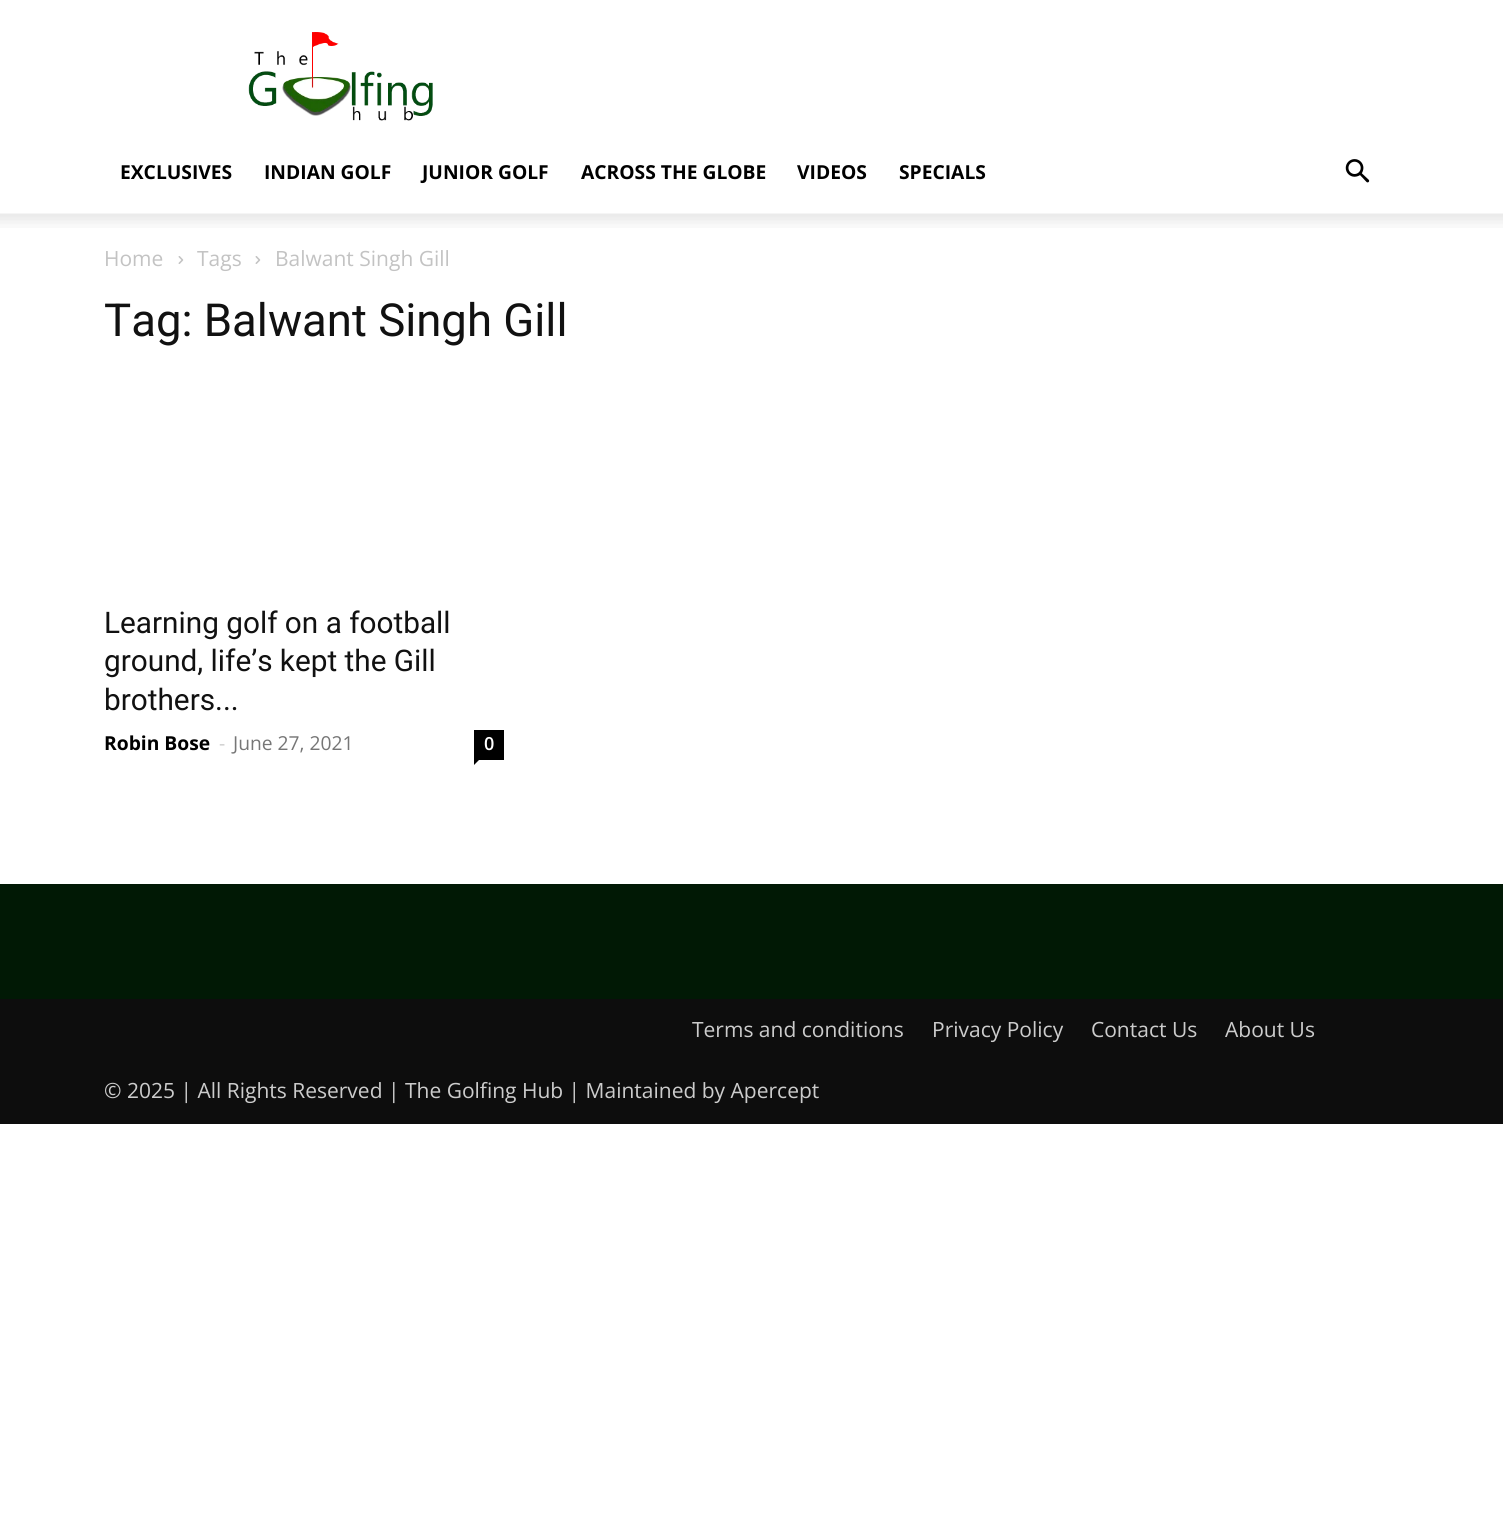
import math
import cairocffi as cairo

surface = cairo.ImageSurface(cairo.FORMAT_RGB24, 1503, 1525)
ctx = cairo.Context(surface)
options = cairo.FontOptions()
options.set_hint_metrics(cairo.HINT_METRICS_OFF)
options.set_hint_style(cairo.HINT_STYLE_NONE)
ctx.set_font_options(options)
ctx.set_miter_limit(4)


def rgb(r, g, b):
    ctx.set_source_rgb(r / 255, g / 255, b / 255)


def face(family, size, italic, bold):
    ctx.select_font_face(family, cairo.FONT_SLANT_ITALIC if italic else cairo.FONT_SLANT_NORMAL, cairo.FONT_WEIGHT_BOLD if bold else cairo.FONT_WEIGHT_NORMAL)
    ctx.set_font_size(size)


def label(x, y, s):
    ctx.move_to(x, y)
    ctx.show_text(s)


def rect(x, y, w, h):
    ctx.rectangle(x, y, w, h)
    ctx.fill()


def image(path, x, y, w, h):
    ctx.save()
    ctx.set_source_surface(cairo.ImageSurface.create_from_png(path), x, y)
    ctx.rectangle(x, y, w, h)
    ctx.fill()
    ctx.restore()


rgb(255, 255, 255)
ctx.paint()
image('image0.png', 248, 32, 185, 89)
face('Open Sans', 19.25, 0, 1)
rgb(0, 0, 0)
label(120, 179, 'EXCLUSIVES')
label(264, 179, 'INDIAN GOLF')
label(422, 179, 'JUNIOR GOLF')
label(581, 179, 'ACROSS THE GLOBE')
label(797, 179, 'VIDEOS')
label(899, 179, 'SPECIALS')
image('image1.png', 1345, 159, 25, 24)
image('image2.png', 0, 213, 1503, 15)
face('Open Sans', 21, 0, 0)
rgb(195, 195, 195)
label(104, 266, 'Home')
image('image3.png', 178, 256, 6, 8)
label(197, 266, 'Tags')
image('image3.png', 255, 256, 6, 8)
label(275, 266, 'Balwant Singh Gill')
face('Roboto', 45.5, 0, 0)
rgb(17, 17, 17)
label(104, 336, 'Tag: Balwant Singh Gill')
face('Roboto', 29.75, 0, 0)
label(104, 633, 'Learning golf on a football')
label(104, 671, 'ground, life’s kept the Gill')
label(104, 710, 'brothers...')
face('Open Sans', 19.25, 0, 1)
rgb(0, 0, 0)
label(104, 750, 'Robin Bose')
face('Open Sans', 19.25, 0, 0)
rgb(204, 204, 204)
label(219, 750, '-')
rgb(118, 118, 118)
label(233, 750, 'June 27, 2021')
rgb(0, 0, 0)
rect(474, 730, 30, 30)
face('Open Sans SemiBold', 18, 0, 0)
rgb(255, 255, 255)
label(484, 750, '0')
rgb(0, 0, 0)
ctx.new_path()
ctx.move_to(474, 759.5)
ctx.line_to(479.5, 759.5)
ctx.line_to(474, 765)
ctx.close_path()
ctx.fill()
rgb(1, 25, 5)
rect(0, 884, 1503, 115)
rgb(13, 13, 13)
rect(0, 999, 1503, 125)
face('Open Sans', 21, 0, 0)
rgb(204, 204, 204)
label(692, 1037, 'Terms and conditions')
label(932, 1037, 'Privacy Policy')
label(1091, 1037, 'Contact Us')
label(1225, 1037, 'About Us')
label(104, 1098, '© 2025 | All Rights Reserved | The Golfing Hub | Maintained by Apercept')
surface.write_to_png('render.png')
